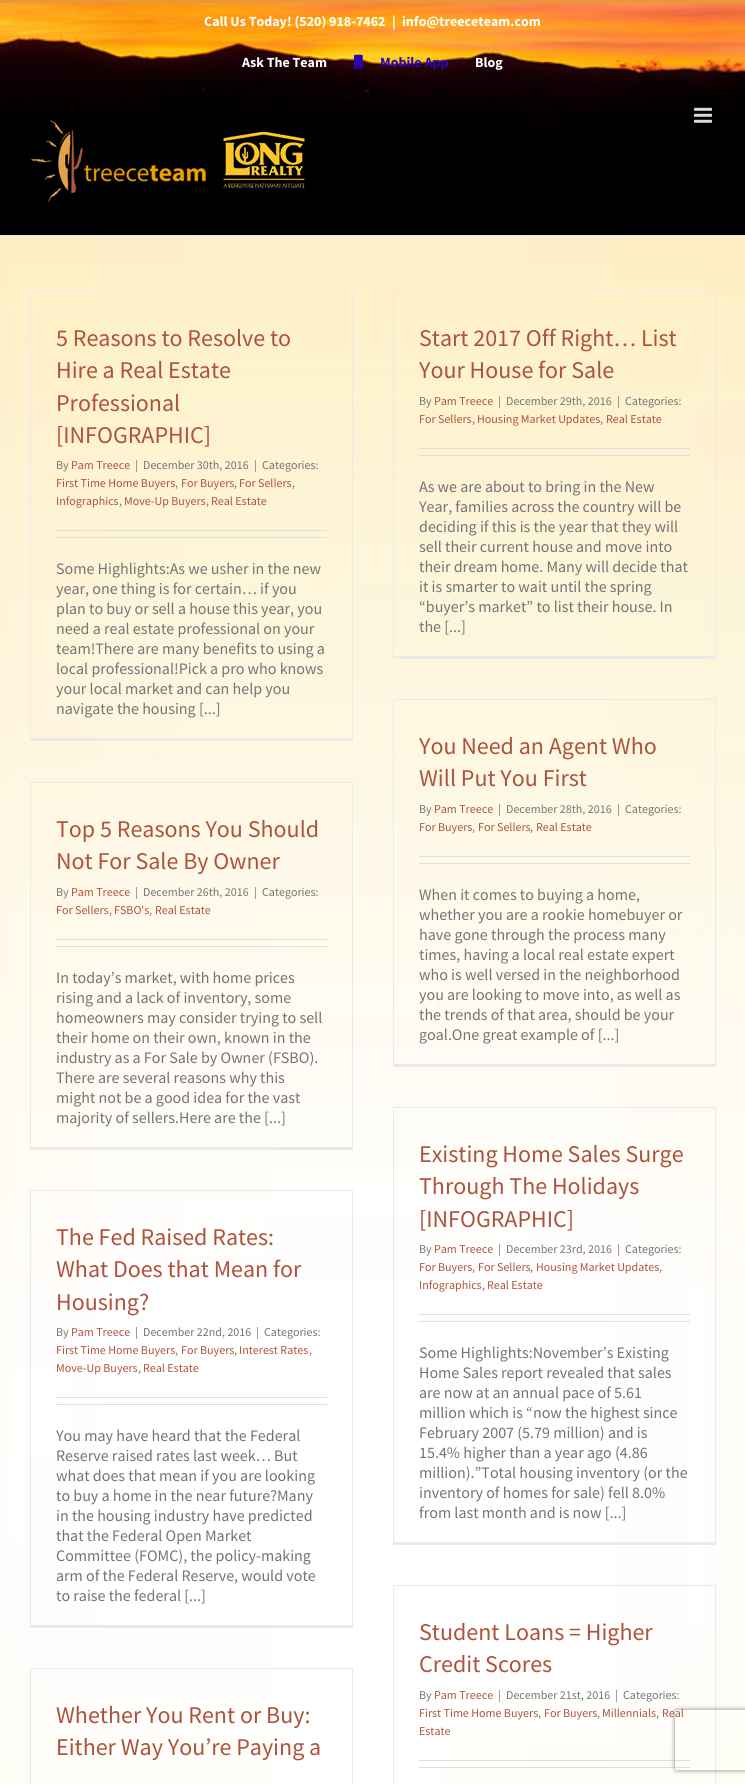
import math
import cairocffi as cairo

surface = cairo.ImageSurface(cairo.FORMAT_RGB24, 745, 1784)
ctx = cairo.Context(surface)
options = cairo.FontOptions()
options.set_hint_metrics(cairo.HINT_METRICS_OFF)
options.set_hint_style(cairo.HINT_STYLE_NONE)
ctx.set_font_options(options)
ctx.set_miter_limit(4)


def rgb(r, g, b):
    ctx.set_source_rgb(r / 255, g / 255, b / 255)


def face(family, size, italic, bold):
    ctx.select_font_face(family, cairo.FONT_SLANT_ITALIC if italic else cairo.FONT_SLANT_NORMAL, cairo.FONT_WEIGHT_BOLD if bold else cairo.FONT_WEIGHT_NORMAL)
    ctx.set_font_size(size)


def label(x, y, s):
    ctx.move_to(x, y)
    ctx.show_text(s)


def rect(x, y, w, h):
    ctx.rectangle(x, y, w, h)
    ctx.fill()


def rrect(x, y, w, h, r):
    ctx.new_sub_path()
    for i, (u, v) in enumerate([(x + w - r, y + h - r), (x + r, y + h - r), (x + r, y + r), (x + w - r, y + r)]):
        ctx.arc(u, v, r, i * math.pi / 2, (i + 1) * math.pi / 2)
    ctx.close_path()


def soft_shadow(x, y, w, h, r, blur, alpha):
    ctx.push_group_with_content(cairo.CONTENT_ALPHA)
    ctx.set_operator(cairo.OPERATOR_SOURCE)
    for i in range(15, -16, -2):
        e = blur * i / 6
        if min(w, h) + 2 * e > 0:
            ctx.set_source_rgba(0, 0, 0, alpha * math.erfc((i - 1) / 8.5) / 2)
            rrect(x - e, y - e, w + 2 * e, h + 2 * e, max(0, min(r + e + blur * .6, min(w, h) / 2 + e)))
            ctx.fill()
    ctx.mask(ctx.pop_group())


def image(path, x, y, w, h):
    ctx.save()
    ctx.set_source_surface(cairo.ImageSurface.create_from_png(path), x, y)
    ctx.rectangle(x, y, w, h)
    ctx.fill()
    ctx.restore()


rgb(255, 255, 255)
ctx.paint()
image('image0.png', 0, 3, 745, 232)
rgb(232, 152, 55)
rect(0, 0, 745, 3)
face('Source Sans Pro', 14, 0, 1)
rgb(255, 255, 255)
label(204, 26, 'Call Us Today! (520) 918-7462')
label(392, 26, '|')
label(402, 26, 'info@treeceteam.com')
label(242, 67, 'Ask The Team')
image('image1.png', 354, 54, 9, 15)
rgb(42, 6, 179)
label(380, 67, 'Mobile App')
rgb(255, 255, 255)
label(475, 67, 'Blog')
rgb(229, 229, 229)
rect(0, 235, 745, 1)
image('image2.png', 694, 107, 18, 16)
image('image3.png', 31, 119, 274, 83)
image('image4.png', 0, 236, 745, 1548)
rgb(235, 234, 234)
rect(30, 291, 323, 1)
rect(352, 291, 1, 450)
rect(30, 738, 323, 3)
rect(30, 291, 1, 450)
face('Source Sans Pro', 24, 0, 0)
rgb(174, 83, 59)
label(56, 346, '5 Reasons to Resolve to')
label(56, 378, 'Hire a Real Estate')
label(56, 411, 'Professional')
label(56, 443, '[INFOGRAPHIC]')
face('Source Sans Pro', 12, 0, 0)
rgb(116, 116, 116)
label(56, 469, 'By')
rgb(174, 83, 59)
label(71, 469, 'Pam Treece')
rgb(116, 116, 116)
label(135, 469, '|')
label(143, 469, 'December 30th, 2016')
label(254, 469, '|')
label(262, 469, 'Categories:')
rgb(174, 83, 59)
label(56, 487, 'First Time Home Buyers')
rgb(116, 116, 116)
label(175, 487, ',')
rgb(174, 83, 59)
label(181, 487, 'For Buyers')
rgb(116, 116, 116)
label(234, 487, ',')
rgb(174, 83, 59)
label(239, 487, 'For Sellers')
rgb(116, 116, 116)
label(292, 487, ',')
rgb(174, 83, 59)
label(56, 505, 'Infographics')
rgb(116, 116, 116)
label(119, 505, ',')
rgb(174, 83, 59)
label(124, 505, 'Move-Up Buyers')
rgb(116, 116, 116)
label(206, 505, ',')
rgb(174, 83, 59)
label(211, 505, 'Real Estate')
rgb(224, 222, 222)
rect(56, 530, 271, 1)
rect(56, 537, 271, 1)
face('Source Sans Pro', 16, 0, 0)
rgb(116, 116, 116)
label(56, 574, 'Some Highlights:As we usher in the new')
label(56, 594, 'year, one thing is for certain… if you')
label(56, 614, 'plan to buy or sell a house this year, you')
label(56, 634, 'need a real estate professional on your')
label(56, 654, 'team!There are many benefits to using a')
label(56, 674, 'local professional!Pick a pro who knows')
label(56, 694, 'your local market and can help you')
label(56, 714, 'navigate the housing [...]')
rgb(235, 234, 234)
rect(393, 291, 323, 1)
rect(715, 291, 1, 368)
rect(393, 656, 323, 3)
rect(393, 291, 1, 368)
face('Source Sans Pro', 24, 0, 0)
rgb(174, 83, 59)
label(419, 346, 'Start 2017 Off Right… List')
label(419, 378, 'Your House for Sale')
face('Source Sans Pro', 12, 0, 0)
rgb(116, 116, 116)
label(419, 405, 'By')
rgb(174, 83, 59)
label(434, 405, 'Pam Treece')
rgb(116, 116, 116)
label(498, 405, '|')
label(506, 405, 'December 29th, 2016')
label(617, 405, '|')
label(625, 405, 'Categories:')
rgb(174, 83, 59)
label(419, 423, 'For Sellers')
rgb(116, 116, 116)
label(472, 423, ',')
rgb(174, 83, 59)
label(477, 423, 'Housing Market Updates')
rgb(116, 116, 116)
label(600, 423, ',')
rgb(174, 83, 59)
label(606, 423, 'Real Estate')
rgb(224, 222, 222)
rect(419, 448, 271, 1)
rect(419, 455, 271, 1)
face('Source Sans Pro', 16, 0, 0)
rgb(116, 116, 116)
label(419, 492, 'As we are about to bring in the New')
label(419, 512, 'Year, families across the country will be')
label(419, 532, 'deciding if this is the year that they will')
label(419, 552, 'sell their current house and move into')
label(419, 572, 'their dream home. Many will decide that')
label(419, 592, 'it is smarter to wait until the spring')
label(419, 612, '“buyer’s market” to list their house. In')
label(419, 632, 'the [...]')
rgb(235, 234, 234)
rect(30, 782, 323, 1)
rect(352, 782, 1, 368)
rect(30, 1147, 323, 3)
rect(30, 782, 1, 368)
face('Source Sans Pro', 24, 0, 0)
rgb(174, 83, 59)
label(56, 837, 'Top 5 Reasons You Should')
label(56, 869, 'Not For Sale By Owner')
face('Source Sans Pro', 12, 0, 0)
rgb(116, 116, 116)
label(56, 896, 'By')
rgb(174, 83, 59)
label(71, 896, 'Pam Treece')
rgb(116, 116, 116)
label(135, 896, '|')
label(143, 896, 'December 26th, 2016')
label(254, 896, '|')
label(262, 896, 'Categories:')
rgb(174, 83, 59)
label(56, 914, 'For Sellers')
rgb(116, 116, 116)
label(109, 914, ',')
rgb(174, 83, 59)
label(114, 914, 'FSBO\'s')
rgb(116, 116, 116)
label(149, 914, ',')
rgb(174, 83, 59)
label(155, 914, 'Real Estate')
rgb(224, 222, 222)
rect(56, 939, 271, 1)
rect(56, 946, 271, 1)
face('Source Sans Pro', 16, 0, 0)
rgb(116, 116, 116)
label(56, 983, 'In today’s market, with home prices')
label(56, 1003, 'rising and a lack of inventory, some')
label(56, 1023, 'homeowners may consider trying to sell')
label(56, 1043, 'their home on their own, known in the')
label(56, 1063, 'industry as a For Sale by Owner (FSBO).')
label(56, 1083, 'There are several reasons why this')
label(56, 1103, 'might not be a good idea for the vast')
label(56, 1123, 'majority of sellers.Here are the [...]')
rgb(235, 234, 234)
rect(393, 699, 323, 1)
rect(715, 699, 1, 368)
rect(393, 1064, 323, 3)
rect(393, 699, 1, 368)
face('Source Sans Pro', 24, 0, 0)
rgb(174, 83, 59)
label(419, 754, 'You Need an Agent Who')
label(419, 786, 'Will Put You First')
face('Source Sans Pro', 12, 0, 0)
rgb(116, 116, 116)
label(419, 813, 'By')
rgb(174, 83, 59)
label(434, 813, 'Pam Treece')
rgb(116, 116, 116)
label(498, 813, '|')
label(506, 813, 'December 28th, 2016')
label(617, 813, '|')
label(625, 813, 'Categories:')
rgb(174, 83, 59)
label(419, 831, 'For Buyers')
rgb(116, 116, 116)
label(472, 831, ',')
rgb(174, 83, 59)
label(478, 831, 'For Sellers')
rgb(116, 116, 116)
label(530, 831, ',')
rgb(174, 83, 59)
label(536, 831, 'Real Estate')
rgb(224, 222, 222)
rect(419, 856, 271, 1)
rect(419, 863, 271, 1)
face('Source Sans Pro', 16, 0, 0)
rgb(116, 116, 116)
label(419, 900, 'When it comes to buying a home,')
label(419, 920, 'whether you are a rookie homebuyer or')
label(419, 940, 'have gone through the process many')
label(419, 960, 'times, having a local real estate expert')
label(419, 980, 'who is well versed in the neighborhood')
label(419, 1000, 'you are looking to move into, as well as')
label(419, 1020, 'the trends of that area, should be your')
label(419, 1040, 'goal.One great example of [...]')
rgb(235, 234, 234)
rect(30, 1190, 323, 1)
rect(352, 1190, 1, 438)
rect(30, 1625, 323, 3)
rect(30, 1190, 1, 438)
face('Source Sans Pro', 24, 0, 0)
rgb(174, 83, 59)
label(56, 1245, 'The Fed Raised Rates:')
label(56, 1277, 'What Does that Mean for')
label(56, 1310, 'Housing?')
face('Source Sans Pro', 12, 0, 0)
rgb(116, 116, 116)
label(56, 1336, 'By')
rgb(174, 83, 59)
label(71, 1336, 'Pam Treece')
rgb(116, 116, 116)
label(135, 1336, '|')
label(143, 1336, 'December 22nd, 2016')
label(256, 1336, '|')
label(264, 1336, 'Categories:')
rgb(174, 83, 59)
label(56, 1354, 'First Time Home Buyers')
rgb(116, 116, 116)
label(175, 1354, ',')
rgb(174, 83, 59)
label(181, 1354, 'For Buyers')
rgb(116, 116, 116)
label(234, 1354, ',')
rgb(174, 83, 59)
label(239, 1354, 'Interest Rates')
rgb(116, 116, 116)
label(309, 1354, ',')
rgb(174, 83, 59)
label(56, 1372, 'Move-Up Buyers')
rgb(116, 116, 116)
label(138, 1372, ',')
rgb(174, 83, 59)
label(143, 1372, 'Real Estate')
rgb(224, 222, 222)
rect(56, 1397, 271, 1)
rect(56, 1404, 271, 1)
face('Source Sans Pro', 16, 0, 0)
rgb(116, 116, 116)
label(56, 1441, 'You may have heard that the Federal')
label(56, 1461, 'Reserve raised rates last week… But')
label(56, 1481, 'what does that mean if you are looking')
label(56, 1501, 'to buy a home in the near future?Many')
label(56, 1521, 'in the housing industry have predicted')
label(56, 1541, 'that the Federal Open Market')
label(56, 1561, 'Committee (FOMC), the policy-making')
label(56, 1581, 'arm of the Federal Reserve, would vote')
label(56, 1601, 'to raise the federal [...]')
rgb(235, 234, 234)
rect(393, 1107, 323, 1)
rect(715, 1107, 1, 438)
rect(393, 1542, 323, 3)
rect(393, 1107, 1, 438)
face('Source Sans Pro', 24, 0, 0)
rgb(174, 83, 59)
label(419, 1162, 'Existing Home Sales Surge')
label(419, 1194, 'Through The Holidays')
label(419, 1227, '[INFOGRAPHIC]')
face('Source Sans Pro', 12, 0, 0)
rgb(116, 116, 116)
label(419, 1253, 'By')
rgb(174, 83, 59)
label(434, 1253, 'Pam Treece')
rgb(116, 116, 116)
label(498, 1253, '|')
label(506, 1253, 'December 23rd, 2016')
label(617, 1253, '|')
label(625, 1253, 'Categories:')
rgb(174, 83, 59)
label(419, 1271, 'For Buyers')
rgb(116, 116, 116)
label(472, 1271, ',')
rgb(174, 83, 59)
label(478, 1271, 'For Sellers')
rgb(116, 116, 116)
label(530, 1271, ',')
rgb(174, 83, 59)
label(536, 1271, 'Housing Market Updates')
rgb(116, 116, 116)
label(659, 1271, ',')
rgb(174, 83, 59)
label(419, 1289, 'Infographics')
rgb(116, 116, 116)
label(482, 1289, ',')
rgb(174, 83, 59)
label(487, 1289, 'Real Estate')
rgb(224, 222, 222)
rect(419, 1314, 271, 1)
rect(419, 1321, 271, 1)
face('Source Sans Pro', 16, 0, 0)
rgb(116, 116, 116)
label(419, 1358, 'Some Highlights:November’s Existing')
label(419, 1378, 'Home Sales report revealed that sales')
label(419, 1398, 'are now at an annual pace of 5.61')
label(419, 1418, 'million which is “now the highest since')
label(419, 1438, 'February 2007 (5.79 million) and is')
label(419, 1458, '15.4% higher than a year ago (4.86')
label(419, 1478, 'million).”Total housing inventory (or the')
label(419, 1498, 'inventory of homes for sale) fell 8.0%')
label(419, 1518, 'from last month and is now [...]')
rgb(235, 234, 234)
rect(30, 1668, 323, 1)
rect(352, 1668, 1, 116)
rect(30, 1668, 1, 116)
face('Source Sans Pro', 24, 0, 0)
rgb(174, 83, 59)
label(56, 1723, 'Whether You Rent or Buy:')
label(56, 1755, 'Either Way You’re Paying a')
rgb(235, 234, 234)
rect(393, 1585, 323, 1)
rect(715, 1585, 1, 199)
rect(393, 1585, 1, 199)
rgb(174, 83, 59)
label(419, 1640, 'Student Loans = Higher')
label(419, 1672, 'Credit Scores')
face('Source Sans Pro', 12, 0, 0)
rgb(116, 116, 116)
label(419, 1699, 'By')
rgb(174, 83, 59)
label(434, 1699, 'Pam Treece')
rgb(116, 116, 116)
label(498, 1699, '|')
label(506, 1699, 'December 21st, 2016')
label(615, 1699, '|')
label(623, 1699, 'Categories:')
rgb(174, 83, 59)
label(419, 1717, 'First Time Home Buyers')
rgb(116, 116, 116)
label(538, 1717, ',')
rgb(174, 83, 59)
label(544, 1717, 'For Buyers')
rgb(116, 116, 116)
label(597, 1717, ',')
rgb(174, 83, 59)
label(602, 1717, 'Millennials')
rgb(116, 116, 116)
label(656, 1717, ',')
rgb(174, 83, 59)
label(662, 1717, 'Real')
label(419, 1735, 'Estate')
rgb(224, 222, 222)
rect(419, 1760, 271, 1)
rect(419, 1767, 271, 1)
ctx.save()
ctx.set_fill_rule(cairo.FILL_RULE_EVEN_ODD)
ctx.new_path()
ctx.move_to(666, 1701)
ctx.line_to(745, 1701)
ctx.line_to(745, 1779)
ctx.line_to(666, 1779)
ctx.close_path()
ctx.move_to(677, 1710)
ctx.line_to(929, 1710)
ctx.curve_to(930, 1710, 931, 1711, 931, 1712)
ctx.line_to(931, 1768)
ctx.curve_to(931, 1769, 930, 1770, 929, 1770)
ctx.line_to(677, 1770)
ctx.curve_to(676, 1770, 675, 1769, 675, 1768)
ctx.line_to(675, 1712)
ctx.curve_to(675, 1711, 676, 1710, 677, 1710)
ctx.close_path()
ctx.clip()
rgb(128, 128, 128)
soft_shadow(675, 1710, 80, 60, 2, 2.5, 1)
ctx.restore()
surface.write_to_png('render.png')
